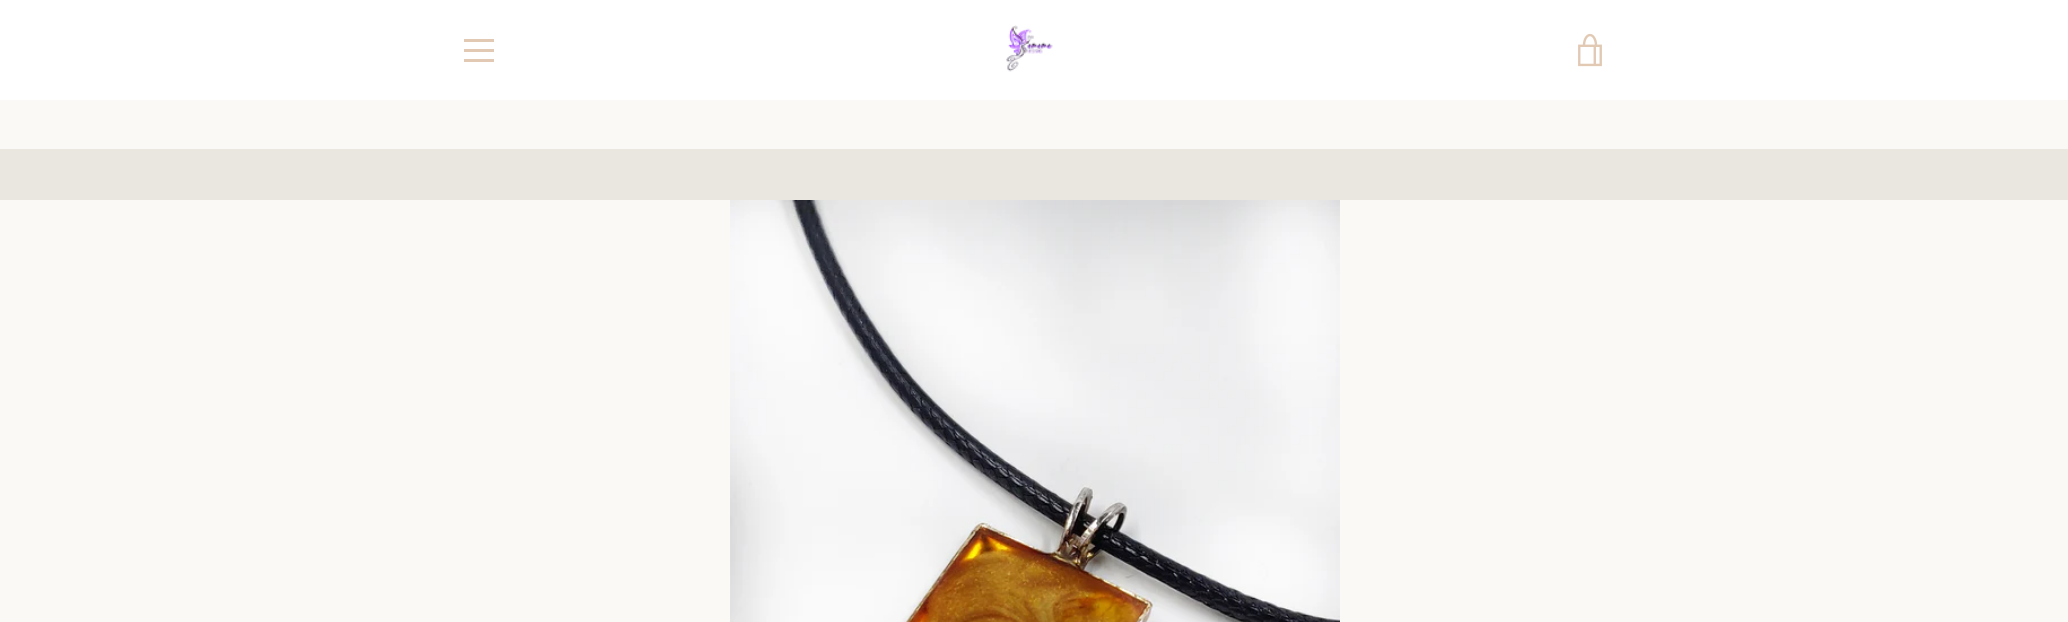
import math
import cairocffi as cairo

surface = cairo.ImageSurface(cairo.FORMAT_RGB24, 2068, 622)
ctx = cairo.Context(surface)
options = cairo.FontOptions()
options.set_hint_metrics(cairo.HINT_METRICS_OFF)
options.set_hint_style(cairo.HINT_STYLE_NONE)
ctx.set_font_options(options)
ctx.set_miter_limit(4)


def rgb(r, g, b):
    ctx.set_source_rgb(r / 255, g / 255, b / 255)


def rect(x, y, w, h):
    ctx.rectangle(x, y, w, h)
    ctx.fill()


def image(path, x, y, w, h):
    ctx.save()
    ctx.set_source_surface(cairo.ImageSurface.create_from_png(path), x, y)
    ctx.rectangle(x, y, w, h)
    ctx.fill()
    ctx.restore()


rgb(250, 249, 246)
ctx.paint()
rgb(255, 255, 255)
rect(0, 0, 2068, 100)
rgb(225, 201, 180)
rect(464, 39, 30, 3)
rect(464, 49, 30, 3)
rect(464, 59, 30, 3)
image('image0.png', 1006, 25, 47, 47)
image('image1.png', 1578, 33, 24, 34)
rgb(234, 231, 224)
rect(0, 149, 2068, 51)
image('image2.png', 730, 200, 610, 422)
surface.write_to_png('render.png')
